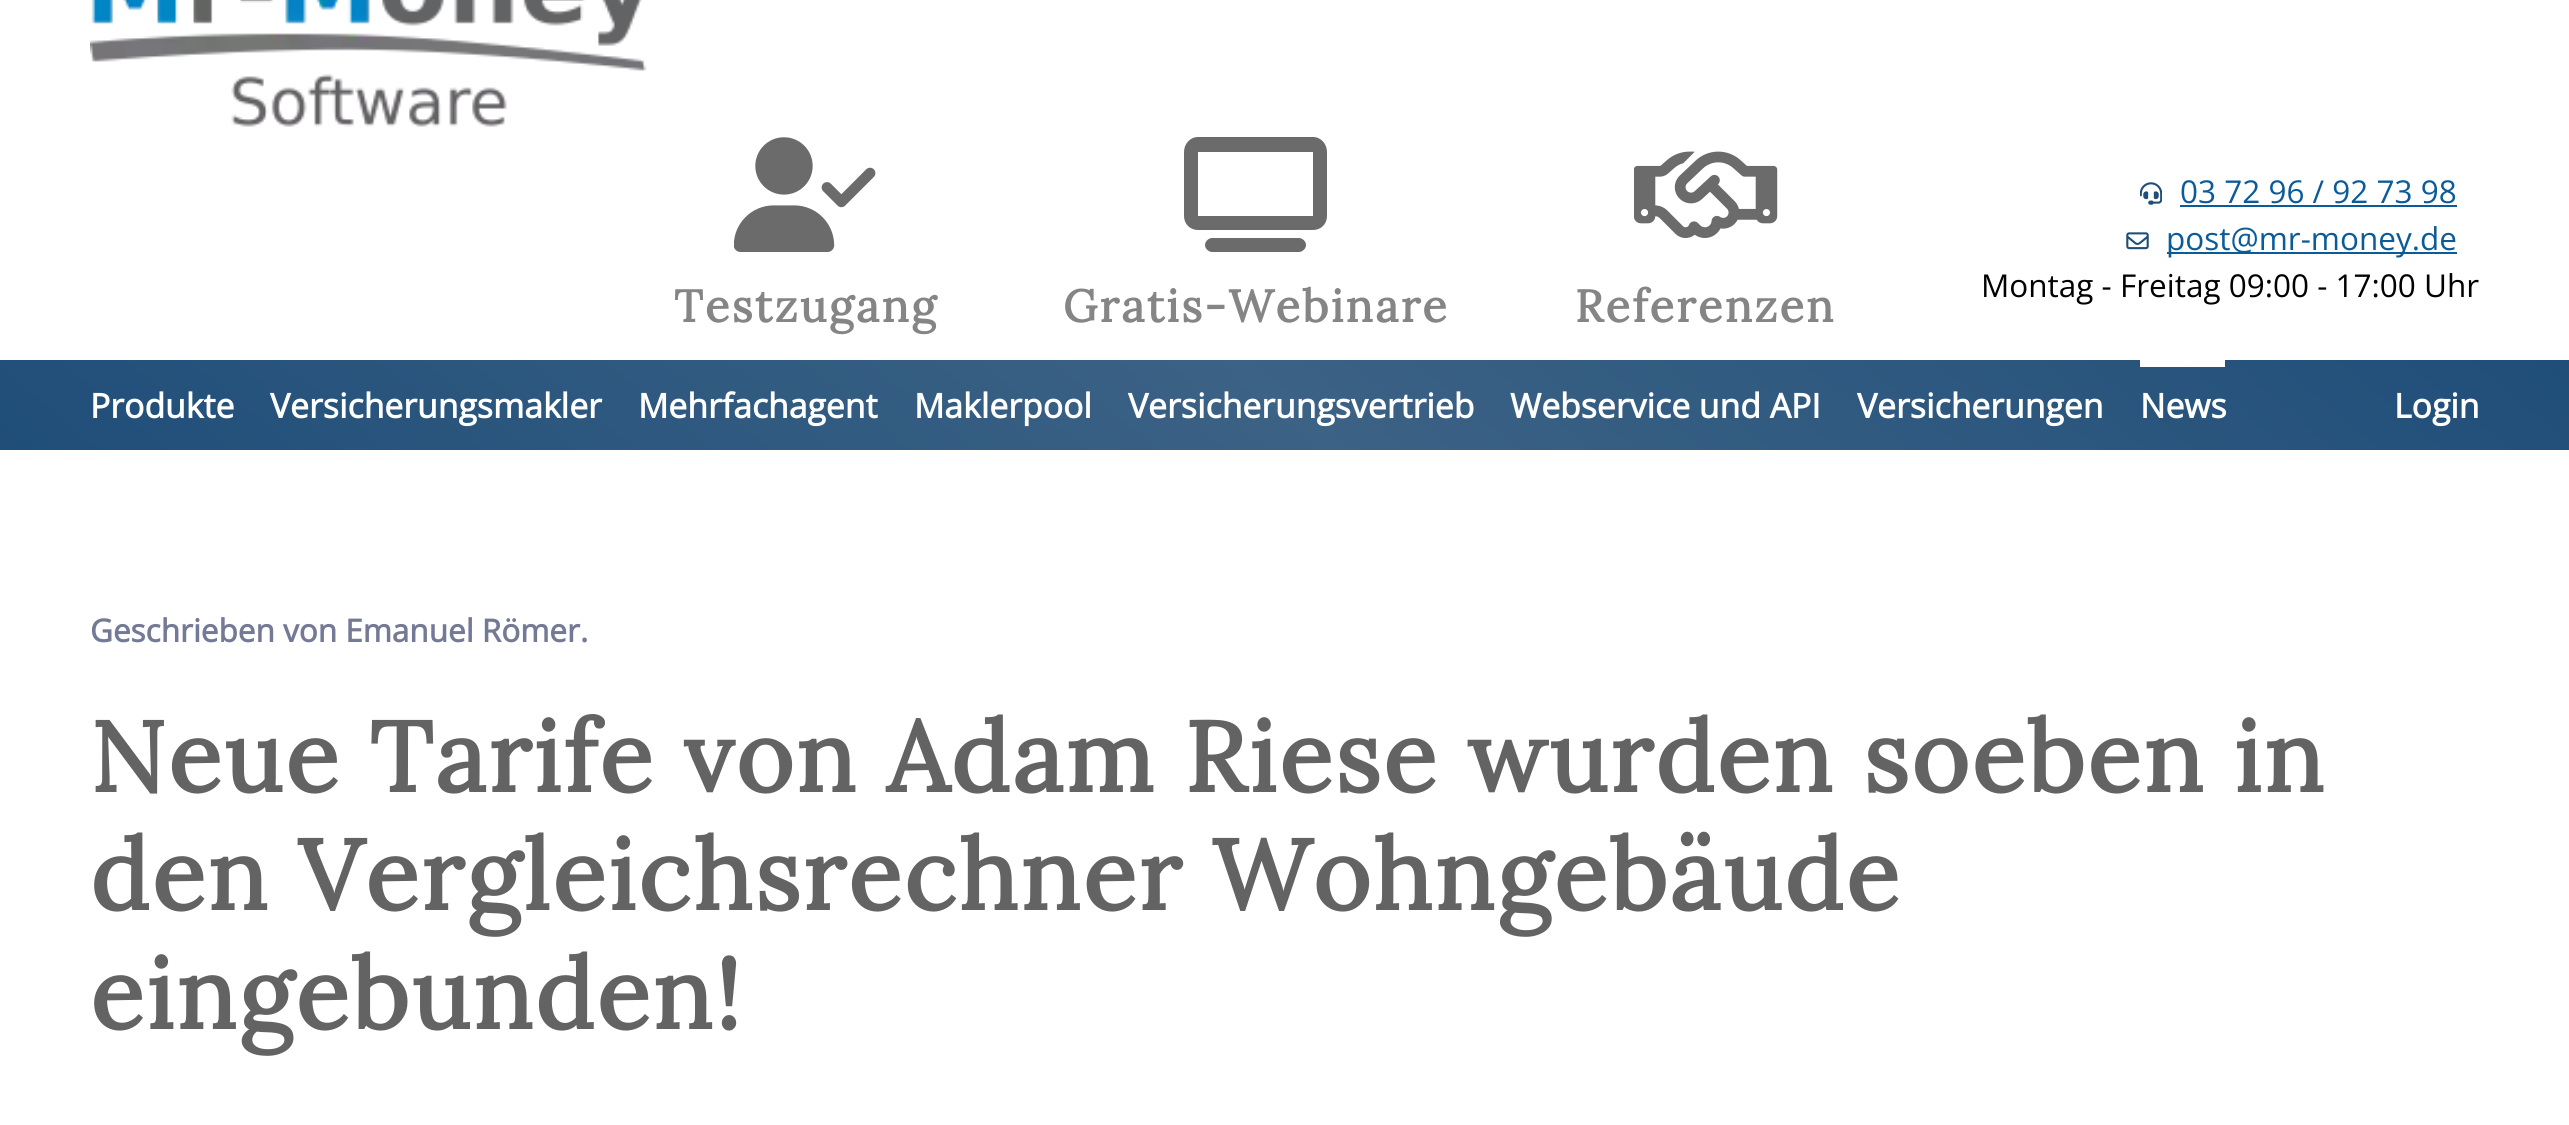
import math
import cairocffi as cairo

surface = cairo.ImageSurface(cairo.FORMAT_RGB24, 2569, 1125)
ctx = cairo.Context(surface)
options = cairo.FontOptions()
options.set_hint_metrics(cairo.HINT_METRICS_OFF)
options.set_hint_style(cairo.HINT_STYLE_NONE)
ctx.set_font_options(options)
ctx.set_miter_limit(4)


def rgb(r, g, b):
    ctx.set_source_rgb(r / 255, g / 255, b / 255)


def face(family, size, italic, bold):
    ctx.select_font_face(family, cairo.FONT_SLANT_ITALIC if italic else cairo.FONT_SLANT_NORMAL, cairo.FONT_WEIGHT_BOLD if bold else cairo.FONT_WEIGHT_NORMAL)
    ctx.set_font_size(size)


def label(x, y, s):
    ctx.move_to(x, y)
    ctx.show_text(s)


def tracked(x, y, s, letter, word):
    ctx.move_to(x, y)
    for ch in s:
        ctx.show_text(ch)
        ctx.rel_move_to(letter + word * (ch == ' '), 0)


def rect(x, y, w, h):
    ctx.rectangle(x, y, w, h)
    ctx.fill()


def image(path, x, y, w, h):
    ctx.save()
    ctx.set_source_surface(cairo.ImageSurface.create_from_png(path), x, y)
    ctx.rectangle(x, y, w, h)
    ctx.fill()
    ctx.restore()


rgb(255, 255, 255)
ctx.paint()
image('image0.png', 90, 0, 557, 127)
image('image1.png', 2140, 182, 22, 23)
face('Open Sans', 31.5, 0, 0)
rgb(11, 91, 153)
label(2180, 203, '03 72 96 / 92 73 98')
rect(2180, 205, 277, 2)
image('image2.png', 2126, 232, 23, 18)
rect(2167, 252, 290, 2)
label(2166, 250, 'post@mr-money.de')
rgb(0, 0, 0)
label(1981, 297, 'Montag - Freitag 09:00 - 17:00 Uhr')
image('image3.png', 734, 137, 142, 115)
face('Lora', 45, 0, 1)
rgb(133, 133, 133)
tracked(674, 322, 'Testzugang', 2.25, 0)
rgb(107, 107, 107)
ctx.new_path()
ctx.move_to(1198, 152)
ctx.line_to(1198, 216)
ctx.line_to(1313, 216)
ctx.line_to(1313, 152)
ctx.close_path()
ctx.move_to(1184, 152)
ctx.curve_to(1184, 144, 1190, 137, 1198, 137)
ctx.line_to(1313, 137)
ctx.curve_to(1321, 137, 1327, 144, 1327, 152)
ctx.line_to(1327, 216)
ctx.curve_to(1327, 224, 1321, 230, 1313, 230)
ctx.line_to(1198, 230)
ctx.curve_to(1190, 230, 1184, 224, 1184, 216)
ctx.close_path()
ctx.move_to(1212, 238)
ctx.line_to(1299, 238)
ctx.curve_to(1302, 238, 1306, 241, 1306, 245)
ctx.curve_to(1306, 249, 1302, 252, 1299, 252)
ctx.line_to(1212, 252)
ctx.curve_to(1209, 252, 1205, 249, 1205, 245)
ctx.curve_to(1205, 241, 1209, 238, 1212, 238)
ctx.close_path()
ctx.fill()
rgb(133, 133, 133)
tracked(1063, 322, 'Gratis-Webinare', 2.25, 0)
image('image4.png', 1634, 151, 144, 87)
tracked(1575, 322, 'Referenzen', 2.25, 0)
gradient = cairo.LinearGradient(732, 1064, 1838, -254)
gradient.add_color_stop_rgba(0, 0.122, 0.306, 0.475, 1)
gradient.add_color_stop_rgba(0.5, 0.235, 0.384, 0.522, 1)
gradient.add_color_stop_rgba(1, 0.122, 0.306, 0.475, 1)
ctx.set_source(gradient)
rect(0, 360, 2569, 90)
face('Open Sans', 33.75, 0, 1)
rgb(255, 255, 255)
label(90, 418, 'Produkte')
label(270, 418, 'Versicherungsmakler')
label(638, 418, 'Mehrfachagent')
label(914, 418, 'Maklerpool')
label(1128, 418, 'Versicherungsvertrieb')
label(1510, 418, 'Webservice und API')
label(1857, 418, 'Versicherungen')
rect(2140, 360, 85, 7)
label(2140, 418, 'News')
label(2394, 418, 'Login')
face('Open Sans', 31.5, 0, 1)
rgb(116, 122, 150)
label(90, 642, 'Geschrieben von Emanuel Römer.')
face('Lora', 99, 0, 1)
rgb(99, 99, 99)
tracked(90, 792, 'Neue Tarife von Adam Riese wurden soeben in', 2.25, 0)
tracked(90, 910, 'den Vergleichsrechner Wohngebäude', 2.25, 0)
tracked(90, 1029, 'eingebunden!', 2.25, 0)
surface.write_to_png('render.png')
